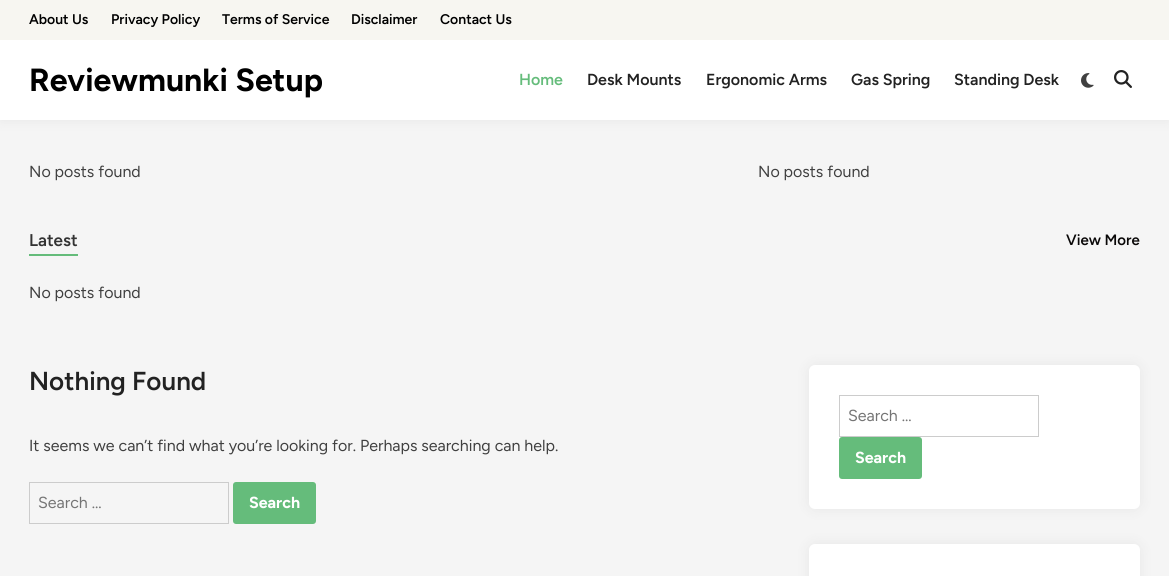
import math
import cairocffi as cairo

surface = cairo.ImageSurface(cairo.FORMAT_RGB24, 1169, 576)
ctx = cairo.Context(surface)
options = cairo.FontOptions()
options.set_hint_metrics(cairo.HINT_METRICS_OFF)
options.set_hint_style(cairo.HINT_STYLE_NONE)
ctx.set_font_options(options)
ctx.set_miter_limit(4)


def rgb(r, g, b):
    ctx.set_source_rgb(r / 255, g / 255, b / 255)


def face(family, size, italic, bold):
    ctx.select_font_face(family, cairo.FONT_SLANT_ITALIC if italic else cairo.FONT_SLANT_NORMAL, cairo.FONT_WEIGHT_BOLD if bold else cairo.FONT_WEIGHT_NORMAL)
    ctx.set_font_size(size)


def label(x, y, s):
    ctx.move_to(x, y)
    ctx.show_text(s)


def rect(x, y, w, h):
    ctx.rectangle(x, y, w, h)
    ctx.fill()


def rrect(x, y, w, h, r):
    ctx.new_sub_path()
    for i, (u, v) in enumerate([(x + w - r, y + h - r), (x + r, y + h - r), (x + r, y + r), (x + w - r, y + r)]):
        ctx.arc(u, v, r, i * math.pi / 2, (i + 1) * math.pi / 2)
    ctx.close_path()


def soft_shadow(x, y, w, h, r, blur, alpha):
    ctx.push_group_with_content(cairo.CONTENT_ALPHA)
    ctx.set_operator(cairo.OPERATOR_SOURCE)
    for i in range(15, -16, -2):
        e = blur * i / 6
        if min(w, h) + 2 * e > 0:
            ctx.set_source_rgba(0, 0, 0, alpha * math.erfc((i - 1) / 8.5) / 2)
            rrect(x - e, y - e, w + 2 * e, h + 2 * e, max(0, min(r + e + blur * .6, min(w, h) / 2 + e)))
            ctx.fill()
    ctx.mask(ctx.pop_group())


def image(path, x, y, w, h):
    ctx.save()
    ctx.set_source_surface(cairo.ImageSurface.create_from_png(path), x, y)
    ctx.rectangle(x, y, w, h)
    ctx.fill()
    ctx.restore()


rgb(245, 245, 245)
ctx.paint()
rgb(0, 0, 0)
soft_shadow(0, 0, 1169, 120, 0, 7.5, 0.06)
rgb(255, 255, 255)
rect(0, 40, 1169, 80)
rgb(247, 246, 241)
rect(0, 0, 1169, 40)
face('Figtree SemiBold', 14, 0, 0)
rgb(0, 0, 0)
label(29, 24, 'About Us')
label(111, 24, 'Privacy Policy')
label(222, 24, 'Terms of Service')
label(351, 24, 'Disclaimer')
label(440, 24, 'Contact Us')
face('Figtree', 32, 0, 1)
label(29, 91, 'Reviewmunki Setup')
face('Figtree SemiBold', 16, 0, 0)
rgb(101, 188, 123)
label(519, 85, 'Home')
rgb(34, 34, 34)
label(587, 85, 'Desk Mounts')
label(706, 85, 'Ergonomic Arms')
label(851, 85, 'Gas Spring')
label(954, 85, 'Standing Desk')
image('image0.png', 1081, 73, 13, 15)
image('image1.png', 1114, 70, 18, 18)
face('Figtree', 16, 0, 0)
rgb(64, 64, 64)
label(29, 177, 'No posts found')
label(758, 177, 'No posts found')
face('Figtree SemiBold', 15, 0, 0)
rgb(10, 8, 8)
label(1066, 245, 'View More')
face('Figtree', 16, 0, 0)
rgb(64, 64, 64)
label(29, 298, 'No posts found')
rgb(101, 188, 123)
rect(29, 254, 49, 2)
face('Figtree SemiBold', 17, 0, 0)
rgb(51, 51, 51)
label(29, 246, 'Latest')
face('Figtree SemiBold', 26, 0, 0)
rgb(34, 34, 34)
label(29, 390, 'Nothing Found')
face('Figtree', 16, 0, 0)
rgb(64, 64, 64)
label(29, 451, 'It seems we can’t find what you’re looking for. Perhaps searching can help.')
ctx.rectangle(29.5, 482.5, 199, 41)
rgb(204, 204, 204)
ctx.set_line_width(1)
ctx.stroke()
rgb(117, 117, 117)
label(38, 508, 'Search …')
rgb(101, 188, 123)
rrect(233, 482, 83, 42, 3)
ctx.fill()
face('Figtree', 16, 0, 1)
rgb(255, 255, 255)
label(249, 508, 'Search')
rgb(0, 0, 0)
soft_shadow(809, 365, 331, 144, 6, 7.5, 0.06)
rgb(255, 255, 255)
rrect(809, 365, 331, 144, 6)
ctx.fill()
ctx.rectangle(839.5, 395.5, 199, 41)
rgb(204, 204, 204)
ctx.stroke()
face('Figtree', 16, 0, 0)
rgb(117, 117, 117)
label(848, 421, 'Search …')
rgb(101, 188, 123)
rrect(839, 437, 83, 42, 3)
ctx.fill()
face('Figtree', 16, 0, 1)
rgb(255, 255, 255)
label(855, 463, 'Search')
rgb(0, 0, 0)
soft_shadow(809, 544, 331, 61, 6, 7.5, 0.06)
rgb(255, 255, 255)
rrect(809, 544, 331, 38, 6)
ctx.fill()
surface.write_to_png('render.png')
